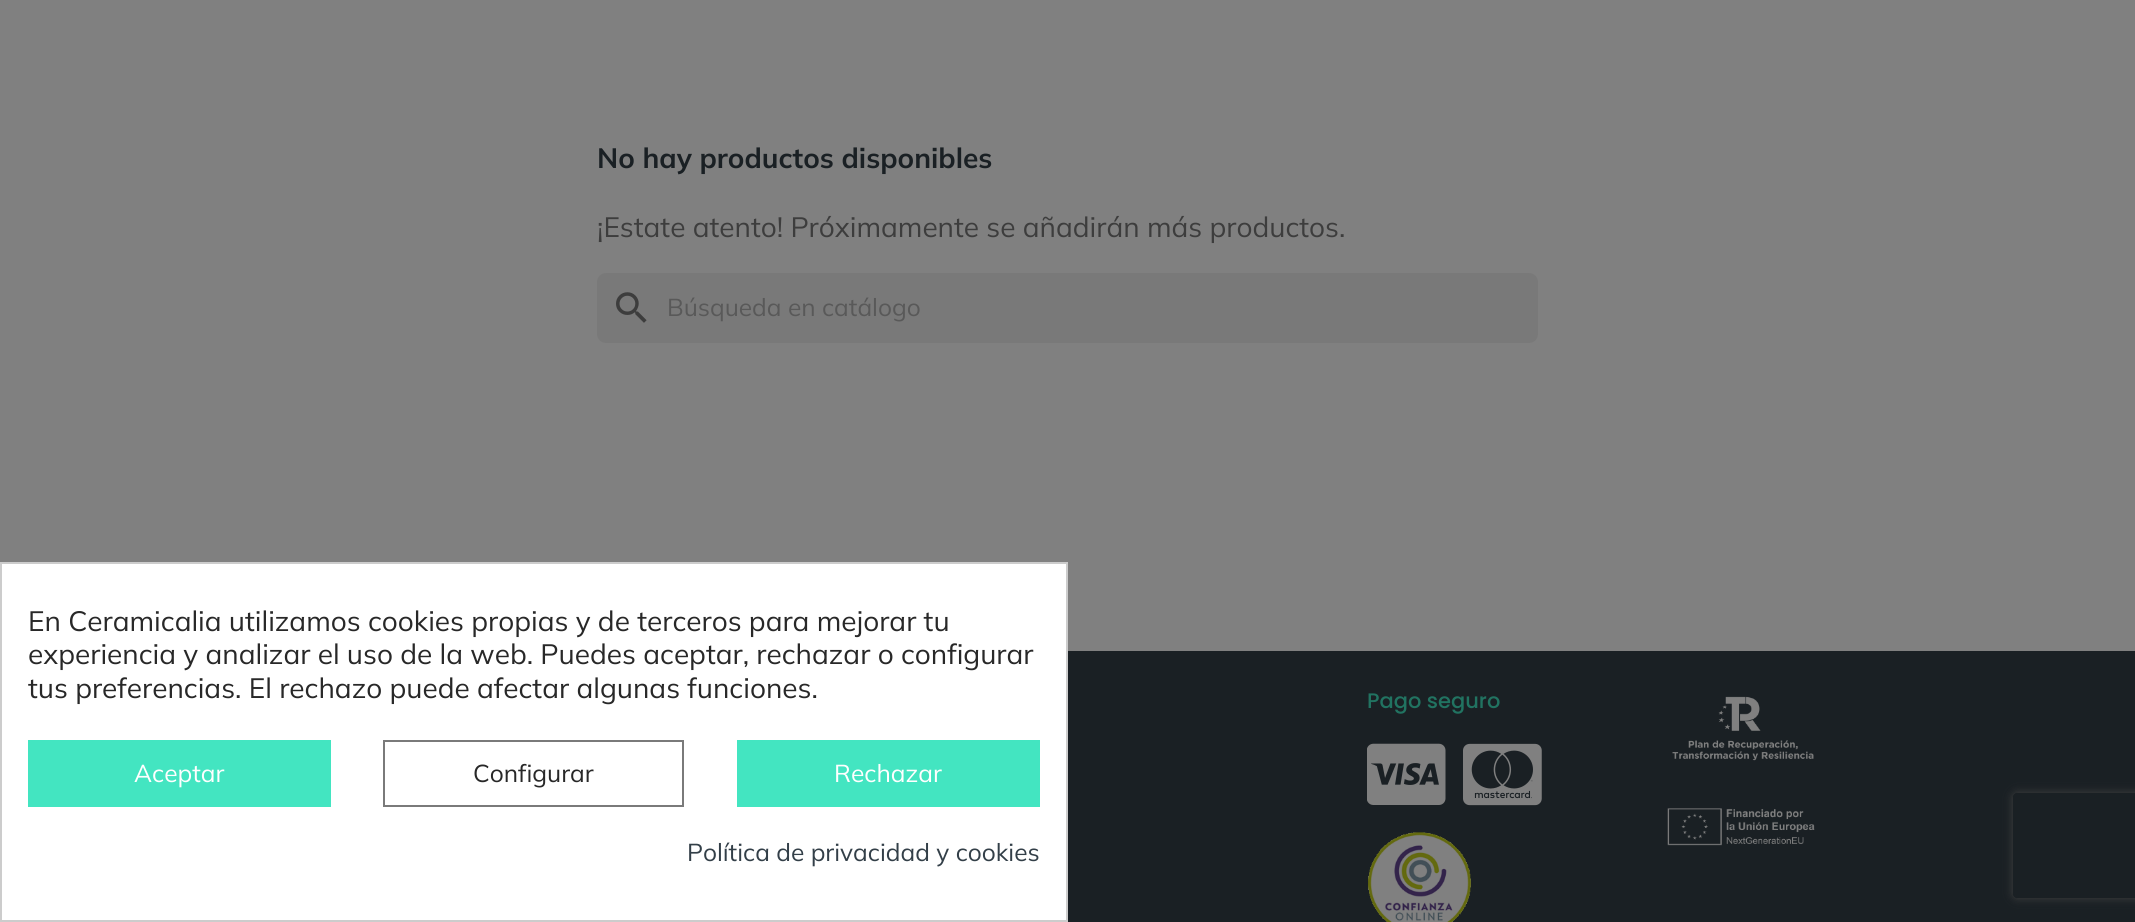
import math
import cairocffi as cairo

surface = cairo.ImageSurface(cairo.FORMAT_RGB24, 2135, 922)
ctx = cairo.Context(surface)
options = cairo.FontOptions()
options.set_hint_metrics(cairo.HINT_METRICS_OFF)
options.set_hint_style(cairo.HINT_STYLE_NONE)
ctx.set_font_options(options)
ctx.set_miter_limit(4)


def rgb(r, g, b):
    ctx.set_source_rgb(r / 255, g / 255, b / 255)


def face(family, size, italic, bold):
    ctx.select_font_face(family, cairo.FONT_SLANT_ITALIC if italic else cairo.FONT_SLANT_NORMAL, cairo.FONT_WEIGHT_BOLD if bold else cairo.FONT_WEIGHT_NORMAL)
    ctx.set_font_size(size)


def label(x, y, s):
    ctx.move_to(x, y)
    ctx.show_text(s)


def rect(x, y, w, h):
    ctx.rectangle(x, y, w, h)
    ctx.fill()


def rrect(x, y, w, h, r):
    ctx.new_sub_path()
    for i, (u, v) in enumerate([(x + w - r, y + h - r), (x + r, y + h - r), (x + r, y + r), (x + w - r, y + r)]):
        ctx.arc(u, v, r, i * math.pi / 2, (i + 1) * math.pi / 2)
    ctx.close_path()


def soft_shadow(x, y, w, h, r, blur, alpha):
    ctx.push_group_with_content(cairo.CONTENT_ALPHA)
    ctx.set_operator(cairo.OPERATOR_SOURCE)
    for i in range(15, -16, -2):
        e = blur * i / 6
        if min(w, h) + 2 * e > 0:
            ctx.set_source_rgba(0, 0, 0, alpha * math.erfc((i - 1) / 8.5) / 2)
            rrect(x - e, y - e, w + 2 * e, h + 2 * e, max(0, min(r + e + blur * .6, min(w, h) / 2 + e)))
            ctx.fill()
    ctx.mask(ctx.pop_group())


def image(path, x, y, w, h):
    ctx.save()
    ctx.set_source_surface(cairo.ImageSurface.create_from_png(path), x, y)
    ctx.rectangle(x, y, w, h)
    ctx.fill()
    ctx.restore()


rgb(128, 128, 128)
ctx.paint()
rgb(255, 255, 255)
ctx.rectangle(1, 563, 1066, 358)
ctx.fill_preserve()
rgb(204, 204, 204)
ctx.stroke()
face('Mulish', 28, 0, 0)
rgb(40, 40, 40)
label(28, 631, 'En Ceramicalia utilizamos cookies propias y de terceros para mejorar tu')
label(28, 664, 'experiencia y analizar el uso de la web. Puedes aceptar, rechazar o configurar')
label(28, 698, 'tus preferencias. El rechazo puede afectar algunas funciones.')
rgb(67, 229, 193)
rect(28, 740, 303, 67)
face('Mulish', 24.5, 0, 0)
rgb(255, 255, 255)
label(134, 782, 'Aceptar')
ctx.rectangle(384, 741, 299, 65)
rgb(122, 122, 122)
ctx.stroke()
rgb(40, 40, 40)
label(473, 782, 'Configurar')
rgb(67, 229, 193)
rect(737, 740, 303, 67)
rgb(255, 255, 255)
label(834, 782, 'Rechazar')
rgb(51, 63, 72)
label(687, 861, 'Política de privacidad y cookies')
face('Mulish', 28, 0, 1)
rgb(26, 32, 36)
label(597, 168, 'No hay productos disponibles')
face('Mulish', 28, 0, 0)
rgb(61, 61, 61)
label(597, 237, '¡Estate atento! Próximamente se añadirán más productos.')
rgb(121, 121, 121)
rrect(597, 273, 941, 70, 9)
ctx.fill()
image('image0.png', 616, 292, 31, 31)
face('Mulish', 24.5, 0, 0)
rgb(89, 89, 89)
label(667, 316, 'Búsqueda en catálogo')
rgb(26, 32, 36)
rect(1068, 651, 1067, 271)
face('Poppins Medium', 21, 0, 0)
rgb(33, 115, 97)
label(1367, 708, 'Pago seguro')
image('image1.png', 1367, 743, 79, 62)
image('image2.png', 1463, 743, 79, 63)
image('image3.png', 1368, 832, 103, 90)
image('image4.png', 1672, 696, 142, 65)
image('image5.png', 1667, 808, 148, 38)
ctx.save()
ctx.set_fill_rule(cairo.FILL_RULE_EVEN_ODD)
ctx.new_path()
ctx.move_to(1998, 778)
ctx.line_to(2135, 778)
ctx.line_to(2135, 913)
ctx.line_to(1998, 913)
ctx.close_path()
ctx.move_to(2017, 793)
ctx.line_to(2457, 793)
ctx.curve_to(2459, 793, 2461, 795, 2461, 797)
ctx.line_to(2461, 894)
ctx.curve_to(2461, 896, 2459, 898, 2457, 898)
ctx.line_to(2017, 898)
ctx.curve_to(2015, 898, 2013, 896, 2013, 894)
ctx.line_to(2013, 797)
ctx.curve_to(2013, 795, 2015, 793, 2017, 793)
ctx.close_path()
ctx.clip()
rgb(64, 64, 64)
soft_shadow(2013, 793, 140, 105, 4, 4.5, 1)
ctx.restore()
surface.write_to_png('render.png')
